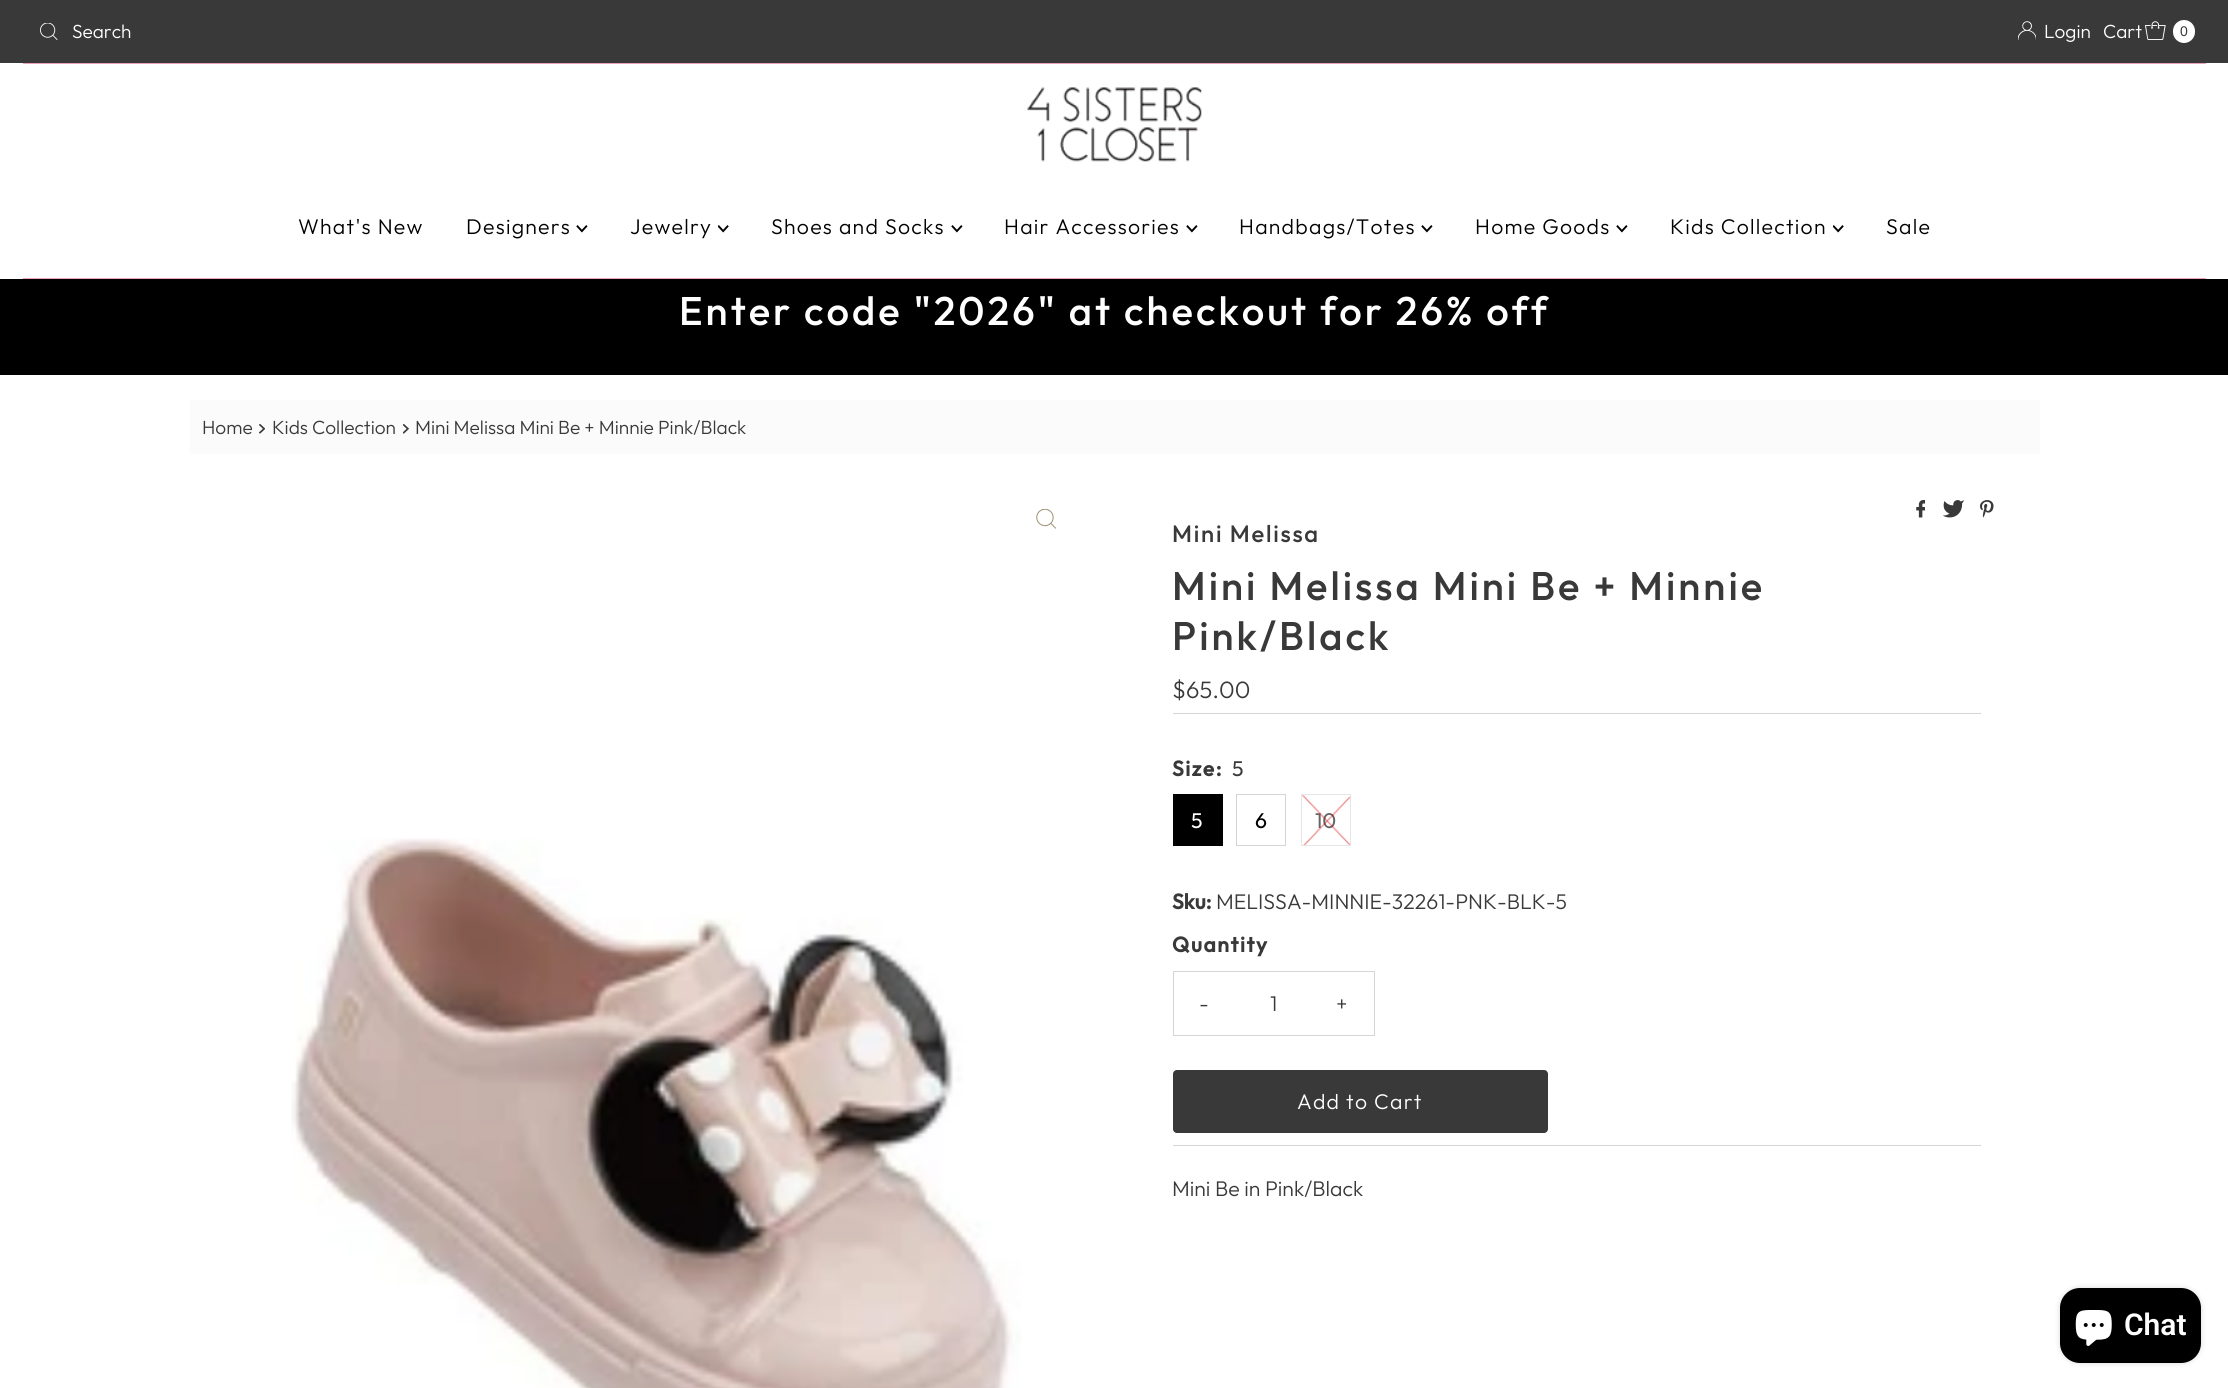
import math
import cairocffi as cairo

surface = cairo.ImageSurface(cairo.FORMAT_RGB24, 2228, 1388)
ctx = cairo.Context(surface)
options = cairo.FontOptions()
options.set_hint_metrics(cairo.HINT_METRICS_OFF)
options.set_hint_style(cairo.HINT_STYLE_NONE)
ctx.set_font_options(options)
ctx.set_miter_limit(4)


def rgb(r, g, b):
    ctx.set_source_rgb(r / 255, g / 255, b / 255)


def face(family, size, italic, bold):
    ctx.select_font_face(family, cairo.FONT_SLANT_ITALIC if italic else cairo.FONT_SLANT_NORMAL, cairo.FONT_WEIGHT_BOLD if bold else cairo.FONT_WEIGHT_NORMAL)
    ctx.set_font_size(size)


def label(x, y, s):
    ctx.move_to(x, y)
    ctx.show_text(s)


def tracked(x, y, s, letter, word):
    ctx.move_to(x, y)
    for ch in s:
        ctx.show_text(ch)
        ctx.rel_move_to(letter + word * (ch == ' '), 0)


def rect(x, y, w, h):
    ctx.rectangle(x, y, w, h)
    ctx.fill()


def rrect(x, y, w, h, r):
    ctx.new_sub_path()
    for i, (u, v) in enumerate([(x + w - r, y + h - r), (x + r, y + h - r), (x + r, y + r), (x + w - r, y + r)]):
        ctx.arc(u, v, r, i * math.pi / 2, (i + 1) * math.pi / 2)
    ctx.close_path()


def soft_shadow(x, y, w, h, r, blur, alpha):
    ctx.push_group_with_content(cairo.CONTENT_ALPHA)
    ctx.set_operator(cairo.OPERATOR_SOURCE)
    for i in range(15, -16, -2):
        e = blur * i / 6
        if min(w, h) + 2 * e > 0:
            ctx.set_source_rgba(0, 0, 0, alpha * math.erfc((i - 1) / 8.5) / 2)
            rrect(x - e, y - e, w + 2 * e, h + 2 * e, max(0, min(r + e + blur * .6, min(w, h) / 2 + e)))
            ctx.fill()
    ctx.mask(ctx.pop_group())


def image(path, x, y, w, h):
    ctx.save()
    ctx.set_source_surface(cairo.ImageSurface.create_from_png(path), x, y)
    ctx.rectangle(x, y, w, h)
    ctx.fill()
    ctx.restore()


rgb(255, 255, 255)
ctx.paint()
rgb(57, 57, 57)
rect(0, 0, 2228, 63)
image('image0.png', 40, 23, 18, 17)
face('Outfit Light', 19, 0, 0)
rgb(255, 255, 255)
label(72, 38, 'Search')
image('image1.png', 2018, 21, 18, 19)
label(2044, 38, 'Login')
label(2103, 38, 'Cart')
image('image2.png', 2145, 21, 21, 19)
rrect(2173, 20, 22, 23, 11)
ctx.fill()
face('Liberation Sans', 14, 0, 0)
rgb(57, 57, 57)
label(2180, 36, '0')
rgb(235, 161, 184)
rect(23, 63, 2183, 1)
image('image3.png', 1027, 87, 175, 75)
face('Outfit Light', 21.25, 0, 0)
rgb(0, 0, 0)
tracked(298, 234, 'What\'s New', 1.25, 0)
tracked(466, 234, 'Designers', 1.25, 0)
image('image4.png', 576, 225, 12, 8)
tracked(630, 234, 'Jewelry', 1.25, 0)
image('image5.png', 718, 225, 11, 8)
tracked(771, 234, 'Shoes and Socks', 1.25, 0)
image('image4.png', 951, 225, 12, 8)
tracked(1004, 234, 'Hair Accessories', 1.25, 0)
image('image4.png', 1186, 225, 12, 8)
tracked(1239, 234, 'Handbags/Totes', 1.25, 0)
image('image4.png', 1421, 225, 12, 8)
tracked(1475, 234, 'Home Goods', 1.25, 0)
image('image4.png', 1616, 225, 12, 8)
tracked(1670, 234, 'Kids Collection', 1.25, 0)
image('image5.png', 1833, 225, 11, 8)
tracked(1886, 234, 'Sale', 1.25, 0)
rgb(235, 161, 184)
rect(23, 278, 2183, 1)
rgb(0, 0, 0)
rect(0, 279, 2228, 96)
face('Outfit Medium', 40, 0, 0)
rgb(255, 255, 255)
tracked(679, 325, 'Enter code "2026" at checkout for 26% off', 3, 0)
rgb(251, 251, 251)
rect(190, 400, 1850, 54)
face('Outfit Light', 19.1, 0, 0)
rgb(57, 57, 57)
label(202, 434, 'Home')
image('image6.png', 259, 424, 6, 10)
label(272, 434, 'Kids Collection')
image('image7.png', 403, 424, 6, 10)
label(415, 434, 'Mini Melissa Mini Be + Minnie Pink/Black')
image('image8.png', 1036, 509, 20, 20)
image('image9.png', 291, 838, 730, 550)
image('image10.png', 1916, 500, 9, 18)
image('image11.png', 1943, 500, 21, 18)
image('image12.png', 1980, 500, 14, 18)
face('Outfit Medium', 23.75, 0, 0)
tracked(1172, 542, 'Mini Melissa', 1.75, 0)
face('Outfit Medium', 40, 0, 0)
tracked(1172, 600, 'Mini Melissa Mini Be + Minnie', 3, 0)
tracked(1172, 650, 'Pink/Black', 3, 0)
rgb(213, 213, 213)
rect(1173, 713, 808, 1)
face('Outfit Light', 23.75, 0, 0)
rgb(57, 57, 57)
label(1172, 698, '$65.00')
face('Outfit', 21.25, 0, 1)
tracked(1172, 776, 'Size:', 1.5, 0)
face('Outfit', 21.25, 0, 0)
tracked(1232, 776, '5', 1.5, 0)
rgb(0, 0, 0)
rect(1173, 794, 50, 52)
rgb(255, 255, 255)
label(1191, 828, '5')
ctx.rectangle(1236.5, 794.5, 49, 51)
rgb(213, 213, 213)
ctx.set_line_width(1)
ctx.stroke()
rgb(0, 0, 0)
label(1255, 828, '6')
ctx.rectangle(1301.5, 794.5, 49, 51)
rgb(230, 230, 230)
ctx.stroke()
rgb(102, 102, 102)
label(1315, 828, '10')
image('image13.png', 1302, 795, 49, 50)
face('Outfit', 21.25, 0, 1)
rgb(57, 57, 57)
label(1172, 909, 'Sku:')
face('Outfit Light', 21.25, 0, 0)
label(1216, 909, 'MELISSA-MINNIE-32261-PNK-BLK-5')
face('Outfit', 21.25, 0, 1)
tracked(1172, 952, 'Quantity', 1.5, 0)
ctx.rectangle(1173.5, 971.5, 201, 64)
rgb(213, 213, 213)
ctx.stroke()
face('Outfit Light', 21.25, 0, 0)
rgb(57, 57, 57)
tracked(1199, 1011, '-', 1.25, 0)
label(1270, 1011, '1')
tracked(1336, 1011, '+', 1.25, 0)
rgb(213, 213, 213)
rect(1173, 1145, 808, 1)
rgb(57, 57, 57)
rrect(1173, 1070, 375, 63, 4)
ctx.fill()
rgb(255, 255, 255)
tracked(1297, 1109, 'Add to Cart', 1.25, 0)
rgb(57, 57, 57)
label(1172, 1196, 'Mini Be in Pink/Black')
rgb(0, 0, 0)
soft_shadow(2060, 1288, 141, 75, 20, 3, 0.15)
rgb(0, 0, 0)
rrect(2060, 1288, 141, 75, 20)
ctx.fill()
image('image14.png', 2075, 1310, 37, 36)
face('Roboto SemiBold', 30, 0, 0)
rgb(255, 255, 255)
label(2124, 1335, 'Chat')
surface.write_to_png('render.png')
